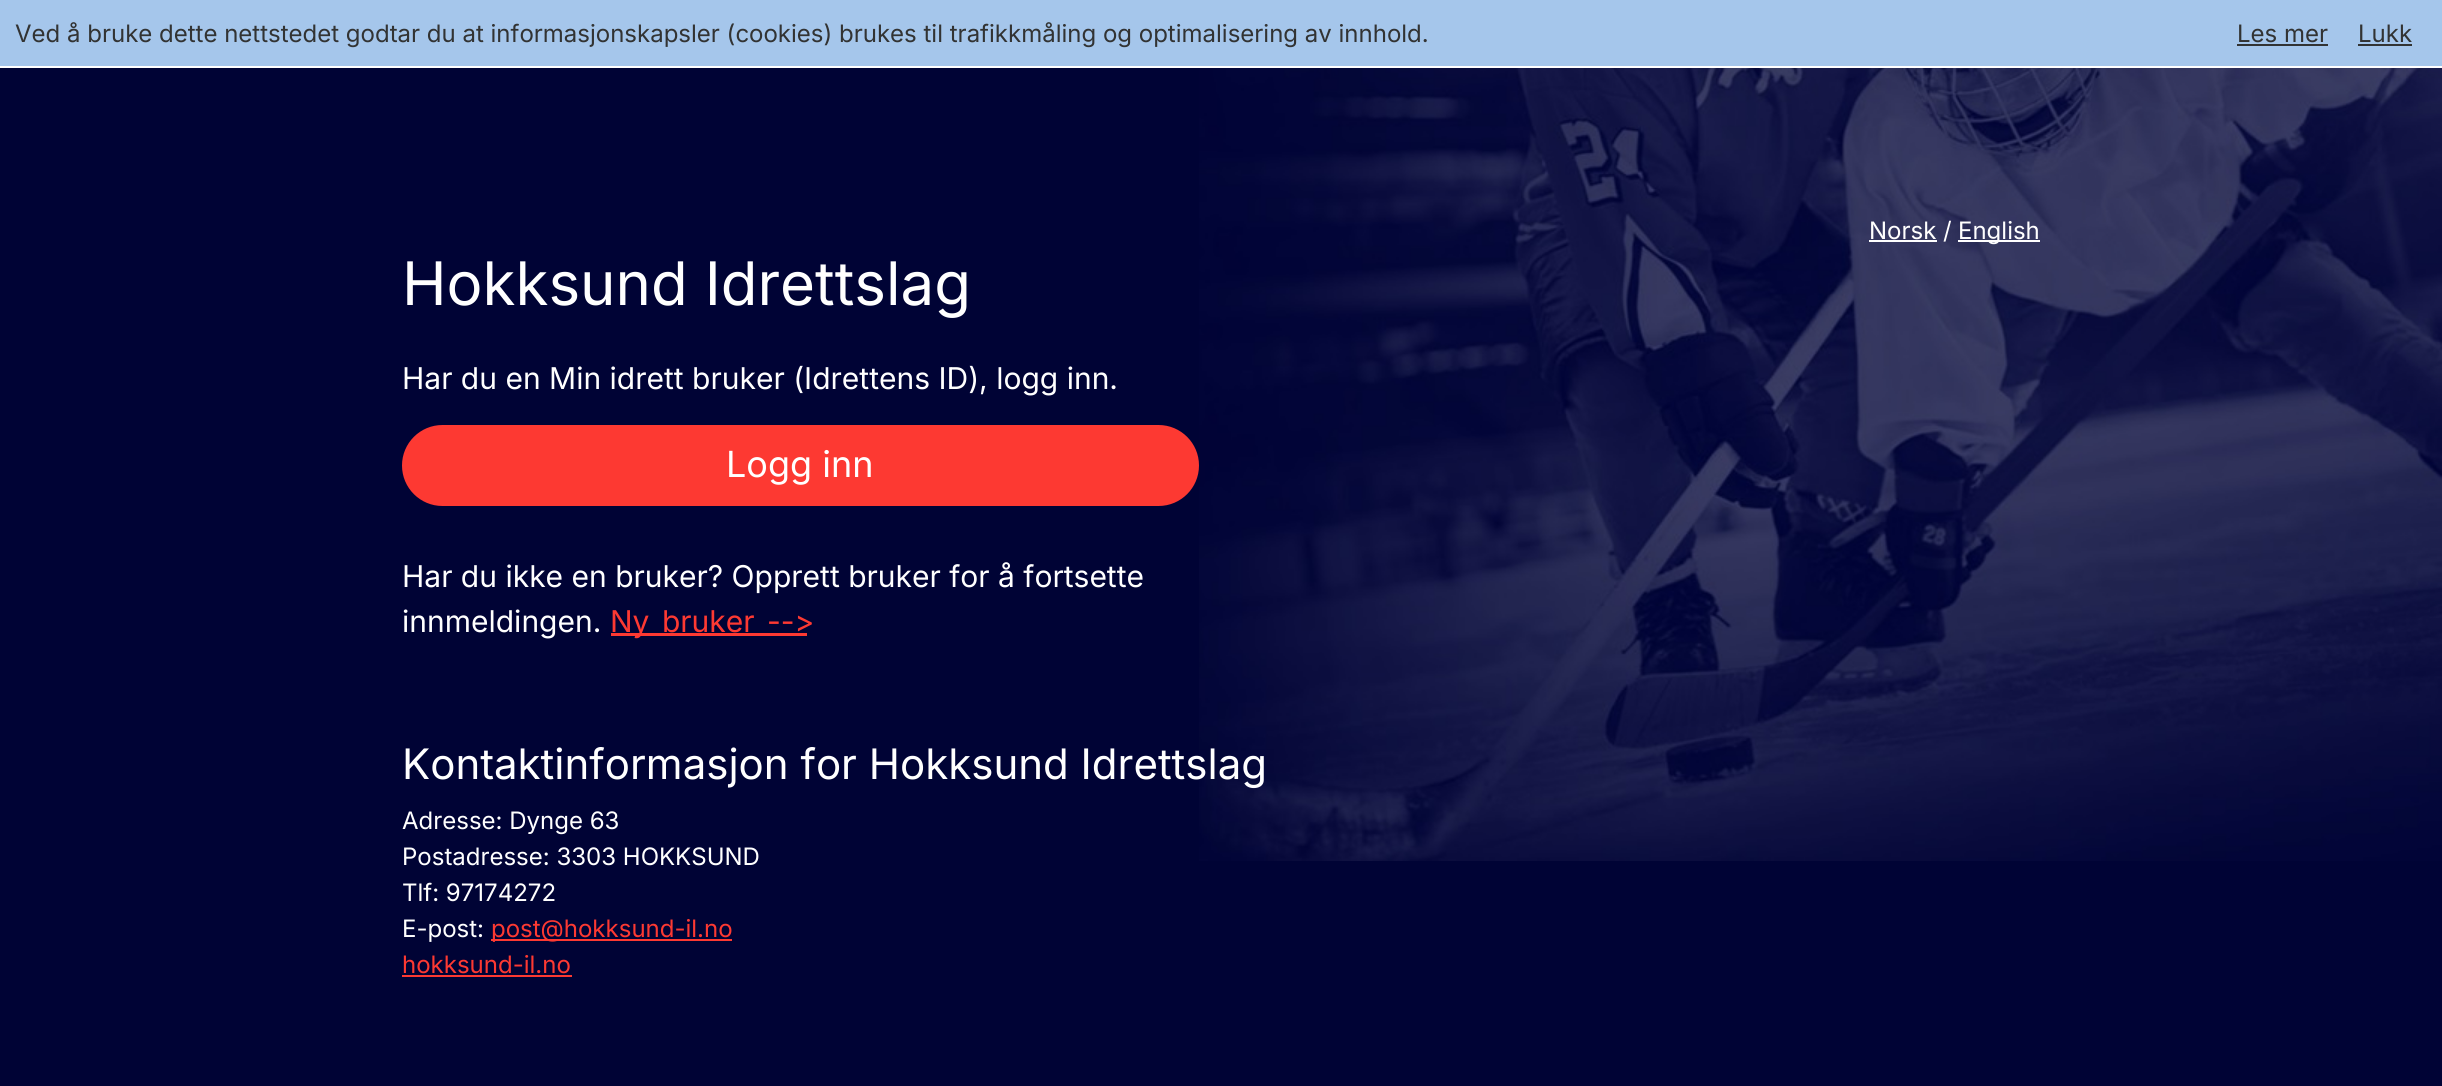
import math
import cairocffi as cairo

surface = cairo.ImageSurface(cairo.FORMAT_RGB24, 2442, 1086)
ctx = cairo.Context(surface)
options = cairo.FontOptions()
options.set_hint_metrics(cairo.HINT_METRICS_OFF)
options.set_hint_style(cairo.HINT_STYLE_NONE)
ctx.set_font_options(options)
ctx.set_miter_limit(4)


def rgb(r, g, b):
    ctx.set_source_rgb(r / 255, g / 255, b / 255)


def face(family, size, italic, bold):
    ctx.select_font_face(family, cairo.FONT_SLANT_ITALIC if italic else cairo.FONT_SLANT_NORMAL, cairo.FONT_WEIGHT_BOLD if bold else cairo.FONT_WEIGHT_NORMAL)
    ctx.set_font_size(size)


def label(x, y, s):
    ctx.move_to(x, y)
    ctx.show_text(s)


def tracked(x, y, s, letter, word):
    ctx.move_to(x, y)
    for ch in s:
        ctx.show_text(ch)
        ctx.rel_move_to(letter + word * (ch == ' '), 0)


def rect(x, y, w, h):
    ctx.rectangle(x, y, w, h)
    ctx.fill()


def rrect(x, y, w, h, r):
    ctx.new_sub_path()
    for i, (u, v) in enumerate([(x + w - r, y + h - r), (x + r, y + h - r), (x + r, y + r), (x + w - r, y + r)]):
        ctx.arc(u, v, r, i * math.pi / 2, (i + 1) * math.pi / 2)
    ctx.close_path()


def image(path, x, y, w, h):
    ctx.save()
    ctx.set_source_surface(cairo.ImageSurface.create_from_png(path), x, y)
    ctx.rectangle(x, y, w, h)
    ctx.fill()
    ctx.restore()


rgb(0, 3, 53)
ctx.paint()
image('image0.png', 1199, 68, 1243, 793)
rgb(165, 198, 235)
rect(0, 0, 2442, 66)
rgb(255, 255, 255)
rect(0, 66, 2442, 2)
face('Inter', 24, 0, 0)
rgb(50, 51, 51)
label(15, 42, 'Ved å bruke dette nettstedet godtar du at informasjonskapsler (cookies) brukes til trafikkmåling og optimalisering av innhold.')
label(2237, 42, 'Les mer')
rect(2237, 44, 91, 2)
label(2358, 42, 'Lukk')
rect(2358, 44, 54, 2)
rgb(255, 255, 255)
rect(1869, 240, 68, 2)
label(1869, 239, 'Norsk /')
rect(1958, 240, 82, 2)
label(1958, 239, 'English')
face('Inter', 60, 0, 0)
label(402, 305, 'Hokksund Idrettslag')
face('Inter', 30, 0, 0)
label(402, 389, 'Har du en Min idrett bruker (Idrettens ID), logg inn.')
rgb(253, 57, 50)
rrect(403, 426, 795, 79, 39.5)
ctx.fill_preserve()
ctx.stroke()
face('Inter', 36, 0, 0)
rgb(255, 255, 255)
label(726, 477, 'Logg inn')
face('Inter', 30, 0, 0)
label(402, 587, 'Har du ikke en bruker? Opprett bruker for å fortsette')
label(402, 632, 'innmeldingen.')
rgb(253, 57, 50)
rect(611, 633, 196, 3)
tracked(610, 632, 'Ny bruker -->', 0, 4)
face('Inter', 42, 0, 0)
rgb(255, 255, 255)
label(402, 779, 'Kontaktinformasjon for Hokksund Idrettslag')
face('Inter', 24, 0, 0)
label(402, 829, 'Adresse: Dynge 63')
label(402, 865, 'Postadresse: 3303 HOKKSUND')
label(402, 901, 'Tlf: 97174272')
label(402, 937, 'E-post:')
rgb(253, 57, 50)
rect(491, 939, 241, 2)
label(491, 937, 'post@hokksund-il.no')
label(402, 973, 'hokksund-il.no')
rect(402, 975, 170, 2)
surface.write_to_png('render.png')
